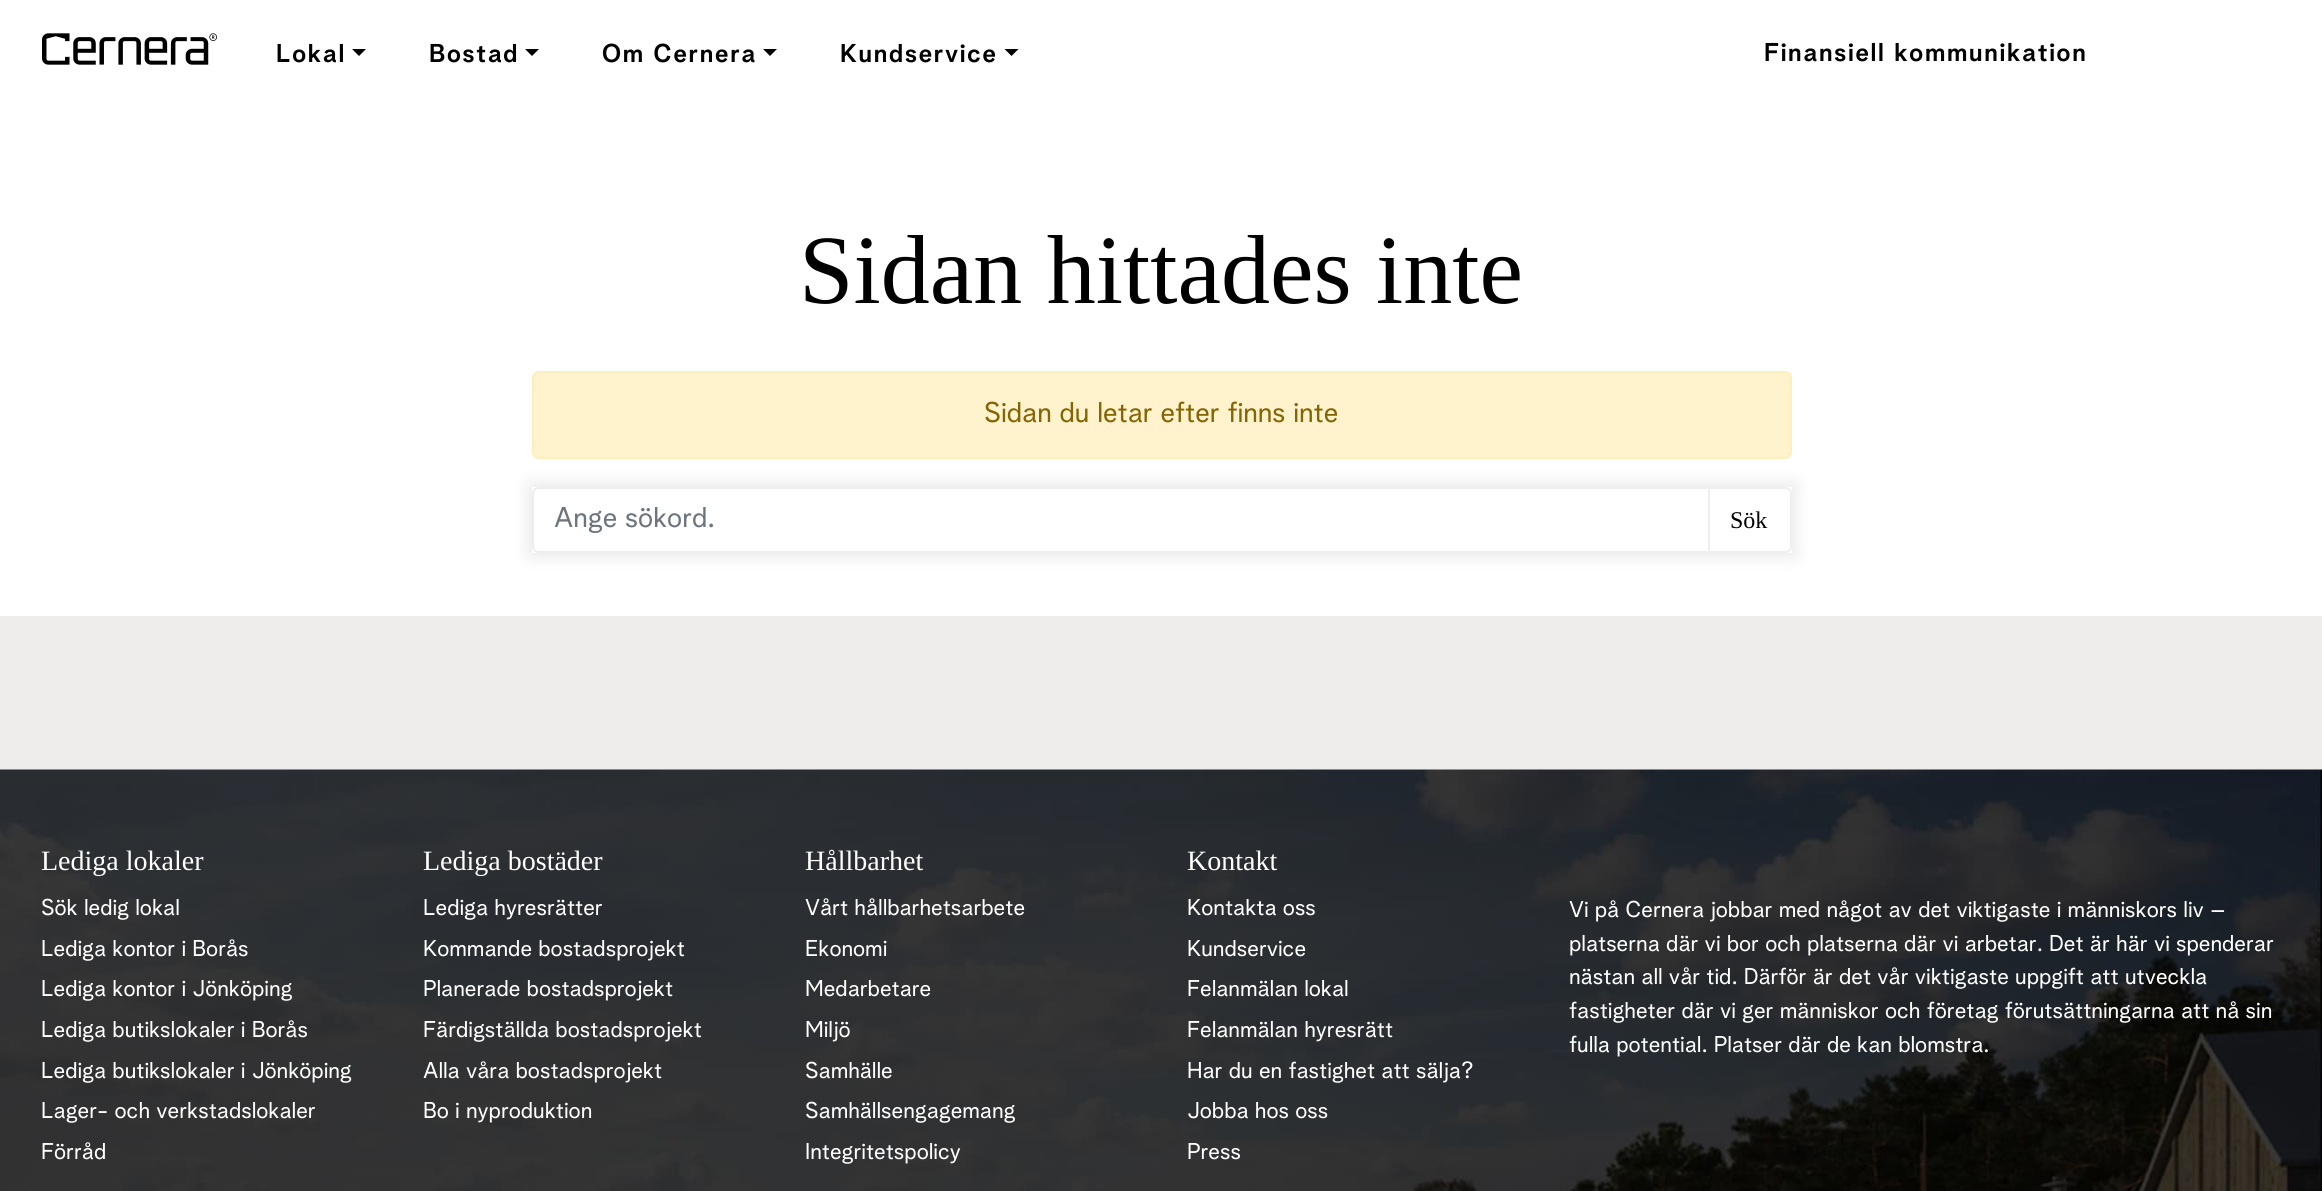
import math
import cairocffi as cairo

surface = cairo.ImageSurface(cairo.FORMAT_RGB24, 2322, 1191)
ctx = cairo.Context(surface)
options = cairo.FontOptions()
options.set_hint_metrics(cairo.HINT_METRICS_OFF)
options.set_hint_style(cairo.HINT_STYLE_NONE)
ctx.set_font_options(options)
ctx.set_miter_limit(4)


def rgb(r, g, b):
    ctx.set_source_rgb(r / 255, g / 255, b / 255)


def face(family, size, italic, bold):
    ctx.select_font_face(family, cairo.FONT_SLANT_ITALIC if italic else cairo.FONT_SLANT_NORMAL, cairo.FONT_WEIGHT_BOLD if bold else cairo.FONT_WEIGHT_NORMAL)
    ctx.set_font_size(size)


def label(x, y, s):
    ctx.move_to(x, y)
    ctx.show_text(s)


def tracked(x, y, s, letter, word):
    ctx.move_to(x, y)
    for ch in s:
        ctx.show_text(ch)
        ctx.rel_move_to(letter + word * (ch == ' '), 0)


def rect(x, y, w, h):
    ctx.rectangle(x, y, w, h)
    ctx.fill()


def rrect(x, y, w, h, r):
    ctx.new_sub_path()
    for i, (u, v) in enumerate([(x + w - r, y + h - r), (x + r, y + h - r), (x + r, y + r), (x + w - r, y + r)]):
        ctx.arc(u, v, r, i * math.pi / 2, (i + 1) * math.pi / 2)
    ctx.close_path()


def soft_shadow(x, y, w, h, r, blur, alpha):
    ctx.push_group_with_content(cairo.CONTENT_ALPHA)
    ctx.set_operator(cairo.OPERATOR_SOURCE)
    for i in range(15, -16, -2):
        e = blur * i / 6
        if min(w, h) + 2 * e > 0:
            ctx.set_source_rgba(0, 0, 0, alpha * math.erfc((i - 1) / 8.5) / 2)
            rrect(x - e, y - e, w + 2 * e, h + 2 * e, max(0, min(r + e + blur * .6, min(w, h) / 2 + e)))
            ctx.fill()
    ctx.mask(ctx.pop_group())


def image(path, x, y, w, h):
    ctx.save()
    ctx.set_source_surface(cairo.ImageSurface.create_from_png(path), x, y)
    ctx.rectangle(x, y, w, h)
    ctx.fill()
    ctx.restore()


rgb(255, 255, 255)
ctx.paint()
image('image0.png', 42, 33, 175, 32)
face('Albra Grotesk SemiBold', 25.25, 0, 0)
rgb(0, 0, 0)
tracked(276, 62, 'Lokal', 1.75, 0)
ctx.new_path()
ctx.move_to(352, 49)
ctx.line_to(366, 49)
ctx.line_to(359, 56)
ctx.close_path()
ctx.fill()
tracked(429, 62, 'Bostad', 1.75, 0)
ctx.new_path()
ctx.move_to(525, 49)
ctx.line_to(539, 49)
ctx.line_to(532, 56)
ctx.close_path()
ctx.fill()
tracked(602, 62, 'Om Cernera', 1.75, 0)
ctx.new_path()
ctx.move_to(763, 49)
ctx.line_to(777, 49)
ctx.line_to(770, 56)
ctx.close_path()
ctx.fill()
tracked(840, 62, 'Kundservice', 1.75, 0)
ctx.new_path()
ctx.move_to(1004.5, 49)
ctx.line_to(1018.5, 49)
ctx.line_to(1011.5, 56)
ctx.close_path()
ctx.fill()
tracked(1764, 61, 'Finansiell kommunikation', 1.75, 0)
face('Liberation Serif', 98, 0, 0)
label(799, 303, 'Sidan hittades inte')
rgb(255, 243, 205)
rrect(533, 372, 1258, 86, 6)
ctx.fill_preserve()
rgb(255, 238, 186)
ctx.stroke()
face('Albra Grotesk', 28, 0, 0)
rgb(133, 100, 4)
label(984, 422, 'Sidan du letar efter finns inte')
ctx.save()
ctx.set_fill_rule(cairo.FILL_RULE_EVEN_ODD)
ctx.new_path()
ctx.move_to(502, 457)
ctx.line_to(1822, 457)
ctx.line_to(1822, 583)
ctx.line_to(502, 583)
ctx.close_path()
ctx.move_to(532, 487)
ctx.line_to(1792, 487)
ctx.line_to(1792, 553)
ctx.line_to(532, 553)
ctx.close_path()
ctx.clip()
rgb(15, 15, 15)
soft_shadow(530, 485, 1264, 70, 0, 9, 0.11)
ctx.restore()
ctx.new_path()
ctx.move_to(539, 488)
ctx.line_to(1709, 488)
ctx.line_to(1709, 552)
ctx.line_to(539, 552)
ctx.curve_to(535.5, 552, 533, 549.5, 533, 546)
ctx.line_to(533, 494)
ctx.curve_to(533, 490.5, 535.5, 488, 539, 488)
ctx.close_path()
rgb(238, 238, 238)
ctx.stroke()
rgb(108, 117, 125)
label(554, 527, 'Ange sökord.')
ctx.new_path()
ctx.move_to(1709, 488)
ctx.line_to(1785, 488)
ctx.curve_to(1788.5, 488, 1791, 490.5, 1791, 494)
ctx.line_to(1791, 546)
ctx.curve_to(1791, 549.5, 1788.5, 552, 1785, 552)
ctx.line_to(1709, 552)
ctx.close_path()
rgb(238, 238, 238)
ctx.stroke()
face('Liberation Serif', 24, 0, 0)
rgb(0, 0, 0)
label(1730, 528, 'Sök')
rgb(238, 237, 235)
rect(0, 616, 2322, 154)
image('image1.png', 0, 769, 2322, 422)
face('Liberation Serif', 28, 0, 0)
rgb(255, 255, 255)
label(41, 870, 'Lediga lokaler')
face('Albra Grotesk', 22.4, 0, 0)
label(41, 915, 'Sök ledig lokal')
label(41, 956, 'Lediga kontor i Borås')
label(41, 996, 'Lediga kontor i Jönköping')
label(41, 1037, 'Lediga butikslokaler i Borås')
label(41, 1078, 'Lediga butikslokaler i Jönköping')
label(41, 1118, 'Lager- och verkstadslokaler')
label(41, 1159, 'Förråd')
face('Liberation Serif', 28, 0, 0)
label(423, 870, 'Lediga bostäder')
face('Albra Grotesk', 22.4, 0, 0)
label(423, 915, 'Lediga hyresrätter')
label(423, 956, 'Kommande bostadsprojekt')
label(423, 996, 'Planerade bostadsprojekt')
label(423, 1037, 'Färdigställda bostadsprojekt')
label(423, 1078, 'Alla våra bostadsprojekt')
label(423, 1118, 'Bo i nyproduktion')
face('Liberation Serif', 28, 0, 0)
label(805, 870, 'Hållbarhet')
face('Albra Grotesk', 22.4, 0, 0)
label(805, 915, 'Vårt hållbarhetsarbete')
label(805, 956, 'Ekonomi')
label(805, 996, 'Medarbetare')
label(805, 1037, 'Miljö')
label(805, 1078, 'Samhälle')
label(805, 1118, 'Samhällsengagemang')
label(805, 1159, 'Integritetspolicy')
face('Liberation Serif', 28, 0, 0)
label(1187, 870, 'Kontakt')
face('Albra Grotesk', 22.4, 0, 0)
label(1187, 915, 'Kontakta oss')
label(1187, 956, 'Kundservice')
label(1187, 996, 'Felanmälan lokal')
label(1187, 1037, 'Felanmälan hyresrätt')
label(1187, 1078, 'Har du en fastighet att sälja?')
label(1187, 1118, 'Jobba hos oss')
label(1187, 1159, 'Press')
label(1569, 917, 'Vi på Cernera jobbar med något av det viktigaste i människors liv –')
label(1569, 951, 'platserna där vi bor och platserna där vi arbetar. Det är här vi spenderar')
label(1569, 984, 'nästan all vår tid. Därför är det vår viktigaste uppgift att utveckla')
label(1569, 1018, 'fastigheter där vi ger människor och företag förutsättningarna att nå sin')
label(1569, 1052, 'fulla potential. Platser där de kan blomstra.')
surface.write_to_png('render.png')
